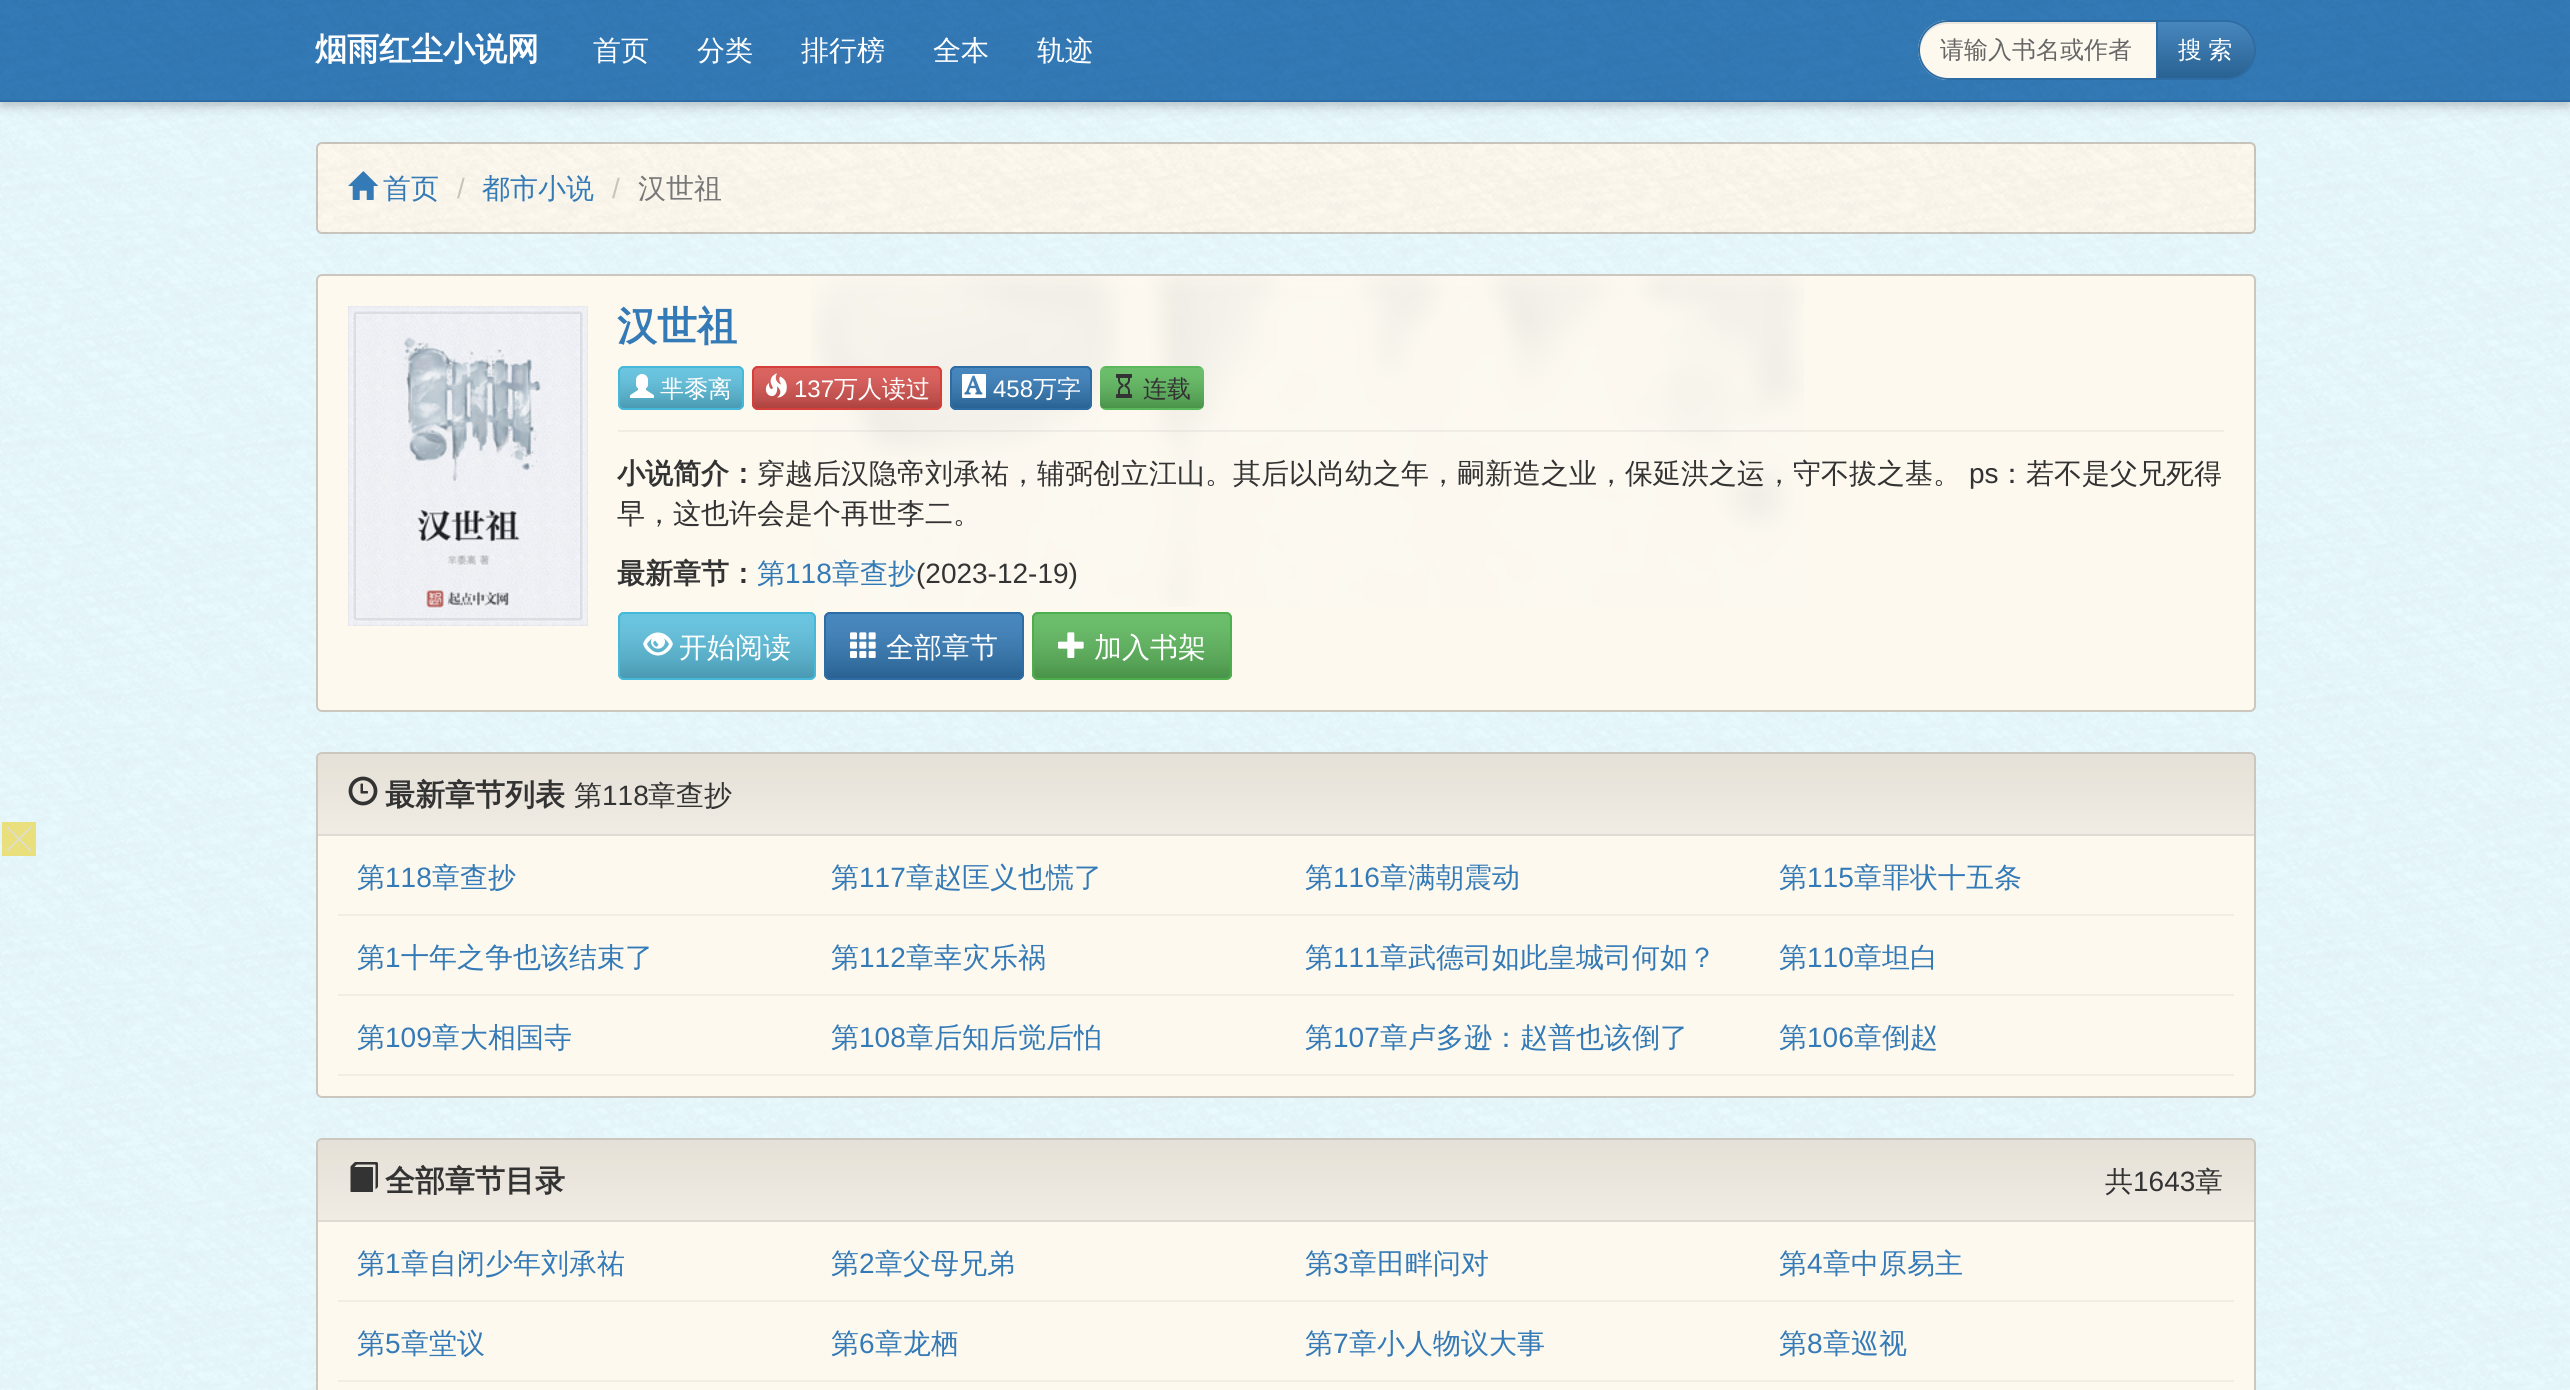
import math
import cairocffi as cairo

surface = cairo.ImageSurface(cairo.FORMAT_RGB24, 2570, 1390)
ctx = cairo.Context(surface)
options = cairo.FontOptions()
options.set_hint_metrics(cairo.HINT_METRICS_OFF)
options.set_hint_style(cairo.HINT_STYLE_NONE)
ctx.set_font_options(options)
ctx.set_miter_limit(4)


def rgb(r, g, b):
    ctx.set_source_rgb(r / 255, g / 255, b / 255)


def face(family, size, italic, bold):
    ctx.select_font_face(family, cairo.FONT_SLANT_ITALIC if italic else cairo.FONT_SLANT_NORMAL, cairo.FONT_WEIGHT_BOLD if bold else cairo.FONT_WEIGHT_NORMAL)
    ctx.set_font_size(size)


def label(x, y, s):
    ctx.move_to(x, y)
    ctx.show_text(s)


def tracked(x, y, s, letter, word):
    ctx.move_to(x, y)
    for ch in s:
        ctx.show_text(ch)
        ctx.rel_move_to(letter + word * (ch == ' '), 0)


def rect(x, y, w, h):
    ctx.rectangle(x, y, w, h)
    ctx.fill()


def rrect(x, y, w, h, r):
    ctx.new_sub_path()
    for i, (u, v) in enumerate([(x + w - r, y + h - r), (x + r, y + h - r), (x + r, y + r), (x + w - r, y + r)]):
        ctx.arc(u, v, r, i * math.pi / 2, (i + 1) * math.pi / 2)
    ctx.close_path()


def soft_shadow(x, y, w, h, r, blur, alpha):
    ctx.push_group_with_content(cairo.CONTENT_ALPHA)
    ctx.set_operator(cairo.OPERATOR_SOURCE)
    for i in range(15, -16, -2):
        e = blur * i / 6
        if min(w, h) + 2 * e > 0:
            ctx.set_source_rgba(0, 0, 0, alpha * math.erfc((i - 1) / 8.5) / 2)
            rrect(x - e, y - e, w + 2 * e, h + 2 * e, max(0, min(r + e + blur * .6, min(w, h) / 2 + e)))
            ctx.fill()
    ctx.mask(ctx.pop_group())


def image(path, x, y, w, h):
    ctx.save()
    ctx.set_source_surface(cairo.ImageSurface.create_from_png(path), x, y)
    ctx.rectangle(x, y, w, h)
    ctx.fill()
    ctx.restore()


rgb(233, 250, 255)
ctx.paint()
image('image0.png', 0, 102, 2570, 1288)
rgb(0, 0, 0)
soft_shadow(0, 2, 2570, 102, 0, 10, 0.06)
soft_shadow(0, 8, 2570, 102, 0, 5, 0.07)
soft_shadow(2, 6, 2566, 98, 0, 4, 0.12)
rgb(51, 122, 183)
rect(0, 0, 2570, 100)
image('image1.png', 0, 0, 2570, 100)
rgb(46, 109, 164)
rect(0, 100, 2570, 2)
face('WenQuanYi Zen Hei', 32, 0, 1)
rgb(255, 255, 255)
label(315, 60, '烟雨红尘小说网')
face('WenQuanYi Zen Hei Medium', 28, 0, 0)
label(593, 60, '首页')
label(697, 60, '分类')
label(801, 60, '排行榜')
label(933, 60, '全本')
label(1037, 60, '轨迹')
rgb(254, 249, 239)
ctx.new_path()
ctx.move_to(1948, 20)
ctx.line_to(2158, 20)
ctx.line_to(2158, 80)
ctx.line_to(1948, 80)
ctx.curve_to(1931.5, 80, 1918, 66.5, 1918, 50)
ctx.curve_to(1918, 33.5, 1931.5, 20, 1948, 20)
ctx.close_path()
ctx.fill()
rgb(235, 230, 221)
ctx.new_path()
ctx.move_to(1948, 24)
ctx.line_to(2156, 24)
ctx.line_to(2156, 22)
ctx.line_to(1948, 22)
ctx.curve_to(1933, 22, 1920, 35, 1920, 50)
ctx.line_to(1920, 51)
ctx.curve_to(1921, 36, 1933, 24, 1948, 24)
ctx.close_path()
ctx.fill()
ctx.new_path()
ctx.move_to(1948, 21)
ctx.line_to(2157, 21)
ctx.line_to(2157, 79)
ctx.line_to(1948, 79)
ctx.curve_to(1932, 79, 1919, 66, 1919, 50)
ctx.curve_to(1919, 34, 1932, 21, 1948, 21)
ctx.close_path()
rgb(46, 109, 164)
ctx.stroke()
face('WenQuanYi Zen Hei Medium', 24, 0, 0)
rgb(102, 102, 102)
label(1940, 58, '请输入书名或作者')
ctx.save()
ctx.new_path()
ctx.move_to(2156, 20)
ctx.line_to(2226, 20)
ctx.curve_to(2242.5, 20, 2256, 33.5, 2256, 50)
ctx.curve_to(2256, 66.5, 2242.5, 80, 2226, 80)
ctx.line_to(2156, 80)
ctx.close_path()
ctx.clip()
gradient = cairo.LinearGradient(2206, 22, 2206, 78)
gradient.add_color_stop_rgba(0, 0.278, 0.529, 0.745, 1)
gradient.add_color_stop_rgba(1, 0.161, 0.384, 0.573, 1)
ctx.set_source(gradient)
rect(2158, 22, 98, 56)
ctx.restore()
ctx.new_path()
ctx.move_to(2157, 21)
ctx.line_to(2226, 21)
ctx.curve_to(2242, 21, 2255, 34, 2255, 50)
ctx.curve_to(2255, 66, 2242, 79, 2226, 79)
ctx.line_to(2157, 79)
ctx.close_path()
rgb(46, 109, 164)
ctx.stroke()
rgb(255, 255, 255)
tracked(2178, 58, '搜 索', 0, -1)
rgb(234, 223, 125)
rect(2, 822, 34, 34)
rgb(221, 221, 221)
ctx.new_path()
ctx.move_to(7.5, 826.5)
ctx.line_to(31.5, 850.5)
ctx.line_to(30.5, 851.5)
ctx.line_to(6.5, 827.5)
ctx.close_path()
ctx.fill()
ctx.new_path()
ctx.move_to(6.5, 850.5)
ctx.line_to(30.5, 826.5)
ctx.line_to(31.5, 827.5)
ctx.line_to(7.5, 851.5)
ctx.close_path()
ctx.fill()
rgb(254, 249, 239)
rrect(316, 142, 1940, 92, 6)
ctx.fill()
image('image2.png', 316, 142, 1940, 92)
rrect(317, 143, 1938, 90, 5)
ctx.set_source_rgba(0, 0, 0, 0.2)
ctx.stroke()
image('image3.png', 348, 171, 30, 29)
face('WenQuanYi Zen Hei Medium', 28, 0, 0)
rgb(51, 122, 183)
label(383, 198, '首页')
face('Liberation Sans', 28, 0, 0)
rgb(200, 196, 189)
label(457, 198, '/')
face('WenQuanYi Zen Hei Medium', 28, 0, 0)
rgb(51, 122, 183)
label(482, 198, '都市小说')
face('Liberation Sans', 28, 0, 0)
rgb(200, 196, 189)
label(612, 198, '/')
face('WenQuanYi Zen Hei Medium', 28, 0, 0)
rgb(119, 119, 119)
label(638, 198, '汉世祖')
rgb(254, 249, 239)
rrect(316, 274, 1940, 438, 6)
ctx.fill()
rrect(317, 275, 1938, 436, 5)
ctx.set_source_rgba(0, 0, 0, 0.2)
ctx.stroke()
image('image4.png', 811, 276, 993, 331)
image('image5.png', 348, 306, 240, 320)
face('WenQuanYi Zen Hei', 40, 0, 1)
rgb(51, 122, 183)
label(617, 340, '汉世祖')
rgb(91, 192, 222)
rrect(618, 366, 126, 44, 6)
ctx.fill()
ctx.save()
rrect(618, 366, 126, 44, 6)
ctx.clip()
gradient = cairo.LinearGradient(681, 368, 681, 408)
gradient.add_color_stop_rgba(0, 1, 1, 1, 0.1)
gradient.add_color_stop_rgba(1, 0, 0, 0, 0.2)
ctx.set_source(gradient)
rect(618, 368, 126, 40)
ctx.restore()
rrect(619, 367, 124, 42, 5)
rgb(70, 184, 218)
ctx.stroke()
image('image6.png', 630, 374, 24, 24)
face('WenQuanYi Zen Hei Medium', 24, 0, 0)
rgb(255, 255, 255)
label(660, 397, '芈黍离')
rgb(217, 83, 79)
rrect(752, 366, 190, 44, 6)
ctx.fill()
ctx.save()
rrect(752, 366, 190, 44, 6)
ctx.clip()
gradient = cairo.LinearGradient(847, 368, 847, 408)
gradient.add_color_stop_rgba(0, 1, 1, 1, 0.1)
gradient.add_color_stop_rgba(1, 0, 0, 0, 0.2)
ctx.set_source(gradient)
rect(752, 368, 190, 40)
ctx.restore()
rrect(753, 367, 188, 42, 5)
rgb(212, 63, 58)
ctx.stroke()
image('image7.png', 765, 373, 22, 25)
face('Liberation Sans', 24, 0, 0)
rgb(255, 255, 255)
label(794, 397, '137')
face('WenQuanYi Zen Hei Medium', 24, 0, 0)
label(834, 397, '万人读过')
rgb(51, 122, 183)
rrect(950, 366, 142, 44, 6)
ctx.fill()
ctx.save()
rrect(950, 366, 142, 44, 6)
ctx.clip()
gradient = cairo.LinearGradient(1021, 368, 1021, 408)
gradient.add_color_stop_rgba(0, 1, 1, 1, 0.1)
gradient.add_color_stop_rgba(1, 0, 0, 0, 0.2)
ctx.set_source(gradient)
rect(950, 368, 142, 40)
ctx.restore()
rrect(951, 367, 140, 42, 5)
rgb(46, 109, 164)
ctx.stroke()
image('image8.png', 962, 374, 24, 24)
face('Liberation Sans', 24, 0, 0)
rgb(255, 255, 255)
label(993, 397, '458')
face('WenQuanYi Zen Hei Medium', 24, 0, 0)
label(1033, 397, '万字')
rgb(92, 184, 92)
rrect(1100, 366, 104, 44, 6)
ctx.fill()
ctx.save()
rrect(1100, 366, 104, 44, 6)
ctx.clip()
gradient = cairo.LinearGradient(1152, 368, 1152, 408)
gradient.add_color_stop_rgba(0, 1, 1, 1, 0.1)
gradient.add_color_stop_rgba(1, 0, 0, 0, 0.2)
ctx.set_source(gradient)
rect(1100, 368, 104, 40)
ctx.restore()
image('image9.png', 1116, 374, 16, 24)
rgb(51, 51, 51)
label(1143, 397, '连载')
ctx.set_source_rgba(0, 0, 0, 0.05)
rect(618, 430, 1606, 2)
face('WenQuanYi Zen Hei', 28, 0, 1)
rgb(51, 51, 51)
label(617, 483, '小说简介：')
face('WenQuanYi Zen Hei Medium', 28, 0, 0)
label(757, 483, '穿越后汉隐帝刘承祐，辅弼创立江山。其后以尚幼之年，嗣新造之业，保延洪之运，守不拔之基。')
face('Liberation Sans', 28, 0, 0)
label(1969, 483, 'ps')
face('WenQuanYi Zen Hei Medium', 28, 0, 0)
label(1998, 483, '：若不是父兄死得')
label(617, 523, '早，这也许会是个再世李二。')
face('WenQuanYi Zen Hei', 28, 0, 1)
label(617, 583, '最新章节：')
face('WenQuanYi Zen Hei Medium', 28, 0, 0)
rgb(51, 122, 183)
label(757, 583, '第')
face('Liberation Sans', 28, 0, 0)
label(785, 583, '118')
face('WenQuanYi Zen Hei Medium', 28, 0, 0)
label(832, 583, '章查抄')
face('Liberation Sans', 28, 0, 0)
rgb(51, 51, 51)
label(916, 583, '(2023-12-19)')
rgb(91, 192, 222)
rrect(618, 612, 198, 68, 6)
ctx.fill()
ctx.save()
rrect(618, 612, 198, 68, 6)
ctx.clip()
gradient = cairo.LinearGradient(717, 614, 717, 678)
gradient.add_color_stop_rgba(0, 1, 1, 1, 0.1)
gradient.add_color_stop_rgba(1, 0, 0, 0, 0.2)
ctx.set_source(gradient)
rect(618, 614, 198, 64)
ctx.restore()
rrect(619, 613, 196, 66, 5)
rgb(70, 184, 218)
ctx.stroke()
image('image10.png', 643, 632, 30, 24)
face('WenQuanYi Zen Hei Medium', 28, 0, 0)
rgb(255, 255, 255)
label(679, 657, '开始阅读')
rgb(51, 122, 183)
rrect(824, 612, 200, 68, 6)
ctx.fill()
ctx.save()
rrect(824, 612, 200, 68, 6)
ctx.clip()
gradient = cairo.LinearGradient(924, 614, 924, 678)
gradient.add_color_stop_rgba(0, 1, 1, 1, 0.1)
gradient.add_color_stop_rgba(1, 0, 0, 0, 0.2)
ctx.set_source(gradient)
rect(824, 614, 200, 64)
ctx.restore()
rrect(825, 613, 198, 66, 5)
rgb(46, 109, 164)
ctx.stroke()
image('image11.png', 850, 632, 26, 26)
rgb(255, 255, 255)
label(886, 657, '全部章节')
rgb(92, 184, 92)
rrect(1032, 612, 200, 68, 6)
ctx.fill()
ctx.save()
rrect(1032, 612, 200, 68, 6)
ctx.clip()
gradient = cairo.LinearGradient(1132, 614, 1132, 678)
gradient.add_color_stop_rgba(0, 1, 1, 1, 0.1)
gradient.add_color_stop_rgba(1, 0, 0, 0, 0.2)
ctx.set_source(gradient)
rect(1032, 614, 200, 64)
ctx.restore()
rrect(1033, 613, 198, 66, 5)
rgb(76, 174, 76)
ctx.stroke()
image('image12.png', 1058, 632, 26, 26)
rgb(255, 255, 255)
label(1094, 657, '加入书架')
rgb(254, 249, 239)
rrect(316, 752, 1940, 346, 6)
ctx.fill()
rrect(317, 753, 1938, 344, 5)
ctx.set_source_rgba(0, 0, 0, 0.2)
ctx.stroke()
gradient = cairo.LinearGradient(1286, 834, 1286, 754)
gradient.add_color_stop_rgba(0, 0, 0, 0, 0.05)
gradient.add_color_stop_rgba(1, 0, 0, 0, 0.1)
ctx.set_source(gradient)
ctx.new_path()
ctx.move_to(322, 754)
ctx.line_to(2250, 754)
ctx.curve_to(2252, 754, 2254, 756, 2254, 758)
ctx.line_to(2254, 834)
ctx.line_to(318, 834)
ctx.line_to(318, 758)
ctx.curve_to(318, 756, 320, 754, 322, 754)
ctx.close_path()
ctx.fill()
rgb(224, 219, 210)
rect(318, 834, 1936, 2)
image('image13.png', 348, 776, 30, 30)
face('WenQuanYi Zen Hei', 30, 0, 1)
rgb(51, 51, 51)
label(385, 805, '最新章节列表')
face('WenQuanYi Zen Hei Medium', 28, 0, 0)
label(574, 805, '第')
face('Liberation Sans', 28, 0, 0)
label(602, 805, '118')
face('WenQuanYi Zen Hei Medium', 28, 0, 0)
label(648, 805, '章查抄')
rgb(241, 237, 227)
rect(338, 914, 1896, 2)
rgb(51, 122, 183)
label(357, 887, '第')
face('Liberation Sans', 28, 0, 0)
label(385, 887, '118')
face('WenQuanYi Zen Hei Medium', 28, 0, 0)
label(432, 887, '章查抄')
label(831, 887, '第')
face('Liberation Sans', 28, 0, 0)
label(859, 887, '117')
face('WenQuanYi Zen Hei Medium', 28, 0, 0)
label(906, 887, '章赵匡义也慌了')
label(1305, 887, '第')
face('Liberation Sans', 28, 0, 0)
label(1333, 887, '116')
face('WenQuanYi Zen Hei Medium', 28, 0, 0)
label(1380, 887, '章满朝震动')
label(1779, 887, '第')
face('Liberation Sans', 28, 0, 0)
label(1807, 887, '115')
face('WenQuanYi Zen Hei Medium', 28, 0, 0)
label(1854, 887, '章罪状十五条')
rgb(241, 237, 227)
rect(338, 994, 1896, 2)
rgb(51, 122, 183)
label(357, 967, '第')
face('Liberation Sans', 28, 0, 0)
label(385, 967, '1')
face('WenQuanYi Zen Hei Medium', 28, 0, 0)
label(401, 967, '十年之争也该结束了')
label(831, 967, '第')
face('Liberation Sans', 28, 0, 0)
label(859, 967, '112')
face('WenQuanYi Zen Hei Medium', 28, 0, 0)
label(906, 967, '章幸灾乐祸')
label(1305, 967, '第')
face('Liberation Sans', 28, 0, 0)
label(1333, 967, '111')
face('WenQuanYi Zen Hei Medium', 28, 0, 0)
label(1380, 967, '章武德司如此皇城司何如？')
label(1779, 967, '第')
face('Liberation Sans', 28, 0, 0)
label(1807, 967, '110')
face('WenQuanYi Zen Hei Medium', 28, 0, 0)
label(1854, 967, '章坦白')
rgb(241, 237, 227)
rect(338, 1074, 1896, 2)
rgb(51, 122, 183)
label(357, 1047, '第')
face('Liberation Sans', 28, 0, 0)
label(385, 1047, '109')
face('WenQuanYi Zen Hei Medium', 28, 0, 0)
label(432, 1047, '章大相国寺')
label(831, 1047, '第')
face('Liberation Sans', 28, 0, 0)
label(859, 1047, '108')
face('WenQuanYi Zen Hei Medium', 28, 0, 0)
label(906, 1047, '章后知后觉后怕')
label(1305, 1047, '第')
face('Liberation Sans', 28, 0, 0)
label(1333, 1047, '107')
face('WenQuanYi Zen Hei Medium', 28, 0, 0)
label(1380, 1047, '章卢多逊：赵普也该倒了')
label(1779, 1047, '第')
face('Liberation Sans', 28, 0, 0)
label(1807, 1047, '106')
face('WenQuanYi Zen Hei Medium', 28, 0, 0)
label(1854, 1047, '章倒赵')
rgb(254, 249, 239)
rrect(316, 1138, 1940, 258, 6)
ctx.fill()
rrect(317, 1139, 1938, 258, 5)
ctx.set_source_rgba(0, 0, 0, 0.2)
ctx.stroke()
gradient = cairo.LinearGradient(1286, 1220, 1286, 1140)
gradient.add_color_stop_rgba(0, 0, 0, 0, 0.05)
gradient.add_color_stop_rgba(1, 0, 0, 0, 0.1)
ctx.set_source(gradient)
ctx.new_path()
ctx.move_to(322, 1140)
ctx.line_to(2250, 1140)
ctx.curve_to(2252, 1140, 2254, 1142, 2254, 1144)
ctx.line_to(2254, 1220)
ctx.line_to(318, 1220)
ctx.line_to(318, 1144)
ctx.curve_to(318, 1142, 320, 1140, 322, 1140)
ctx.close_path()
ctx.fill()
rgb(224, 219, 210)
rect(318, 1220, 1936, 2)
image('image14.png', 350, 1162, 28, 30)
face('WenQuanYi Zen Hei', 30, 0, 1)
rgb(51, 51, 51)
label(385, 1191, '全部章节目录')
face('WenQuanYi Zen Hei Medium', 28, 0, 0)
label(2105, 1191, '共')
face('Liberation Sans', 28, 0, 0)
label(2133, 1191, '1643')
face('WenQuanYi Zen Hei Medium', 28, 0, 0)
label(2195, 1191, '章')
rgb(241, 237, 227)
rect(338, 1300, 1896, 2)
rgb(51, 122, 183)
label(357, 1273, '第')
face('Liberation Sans', 28, 0, 0)
label(385, 1273, '1')
face('WenQuanYi Zen Hei Medium', 28, 0, 0)
label(401, 1273, '章自闭少年刘承祐')
label(831, 1273, '第')
face('Liberation Sans', 28, 0, 0)
label(859, 1273, '2')
face('WenQuanYi Zen Hei Medium', 28, 0, 0)
label(875, 1273, '章父母兄弟')
label(1305, 1273, '第')
face('Liberation Sans', 28, 0, 0)
label(1333, 1273, '3')
face('WenQuanYi Zen Hei Medium', 28, 0, 0)
label(1349, 1273, '章田畔问对')
label(1779, 1273, '第')
face('Liberation Sans', 28, 0, 0)
label(1807, 1273, '4')
face('WenQuanYi Zen Hei Medium', 28, 0, 0)
label(1823, 1273, '章中原易主')
rgb(241, 237, 227)
rect(338, 1380, 1896, 2)
rgb(51, 122, 183)
label(357, 1353, '第')
face('Liberation Sans', 28, 0, 0)
label(385, 1353, '5')
face('WenQuanYi Zen Hei Medium', 28, 0, 0)
label(401, 1353, '章堂议')
label(831, 1353, '第')
face('Liberation Sans', 28, 0, 0)
label(859, 1353, '6')
face('WenQuanYi Zen Hei Medium', 28, 0, 0)
label(875, 1353, '章龙栖')
label(1305, 1353, '第')
face('Liberation Sans', 28, 0, 0)
label(1333, 1353, '7')
face('WenQuanYi Zen Hei Medium', 28, 0, 0)
label(1349, 1353, '章小人物议大事')
label(1779, 1353, '第')
face('Liberation Sans', 28, 0, 0)
label(1807, 1353, '8')
face('WenQuanYi Zen Hei Medium', 28, 0, 0)
label(1823, 1353, '章巡视')
surface.write_to_png('render.png')
